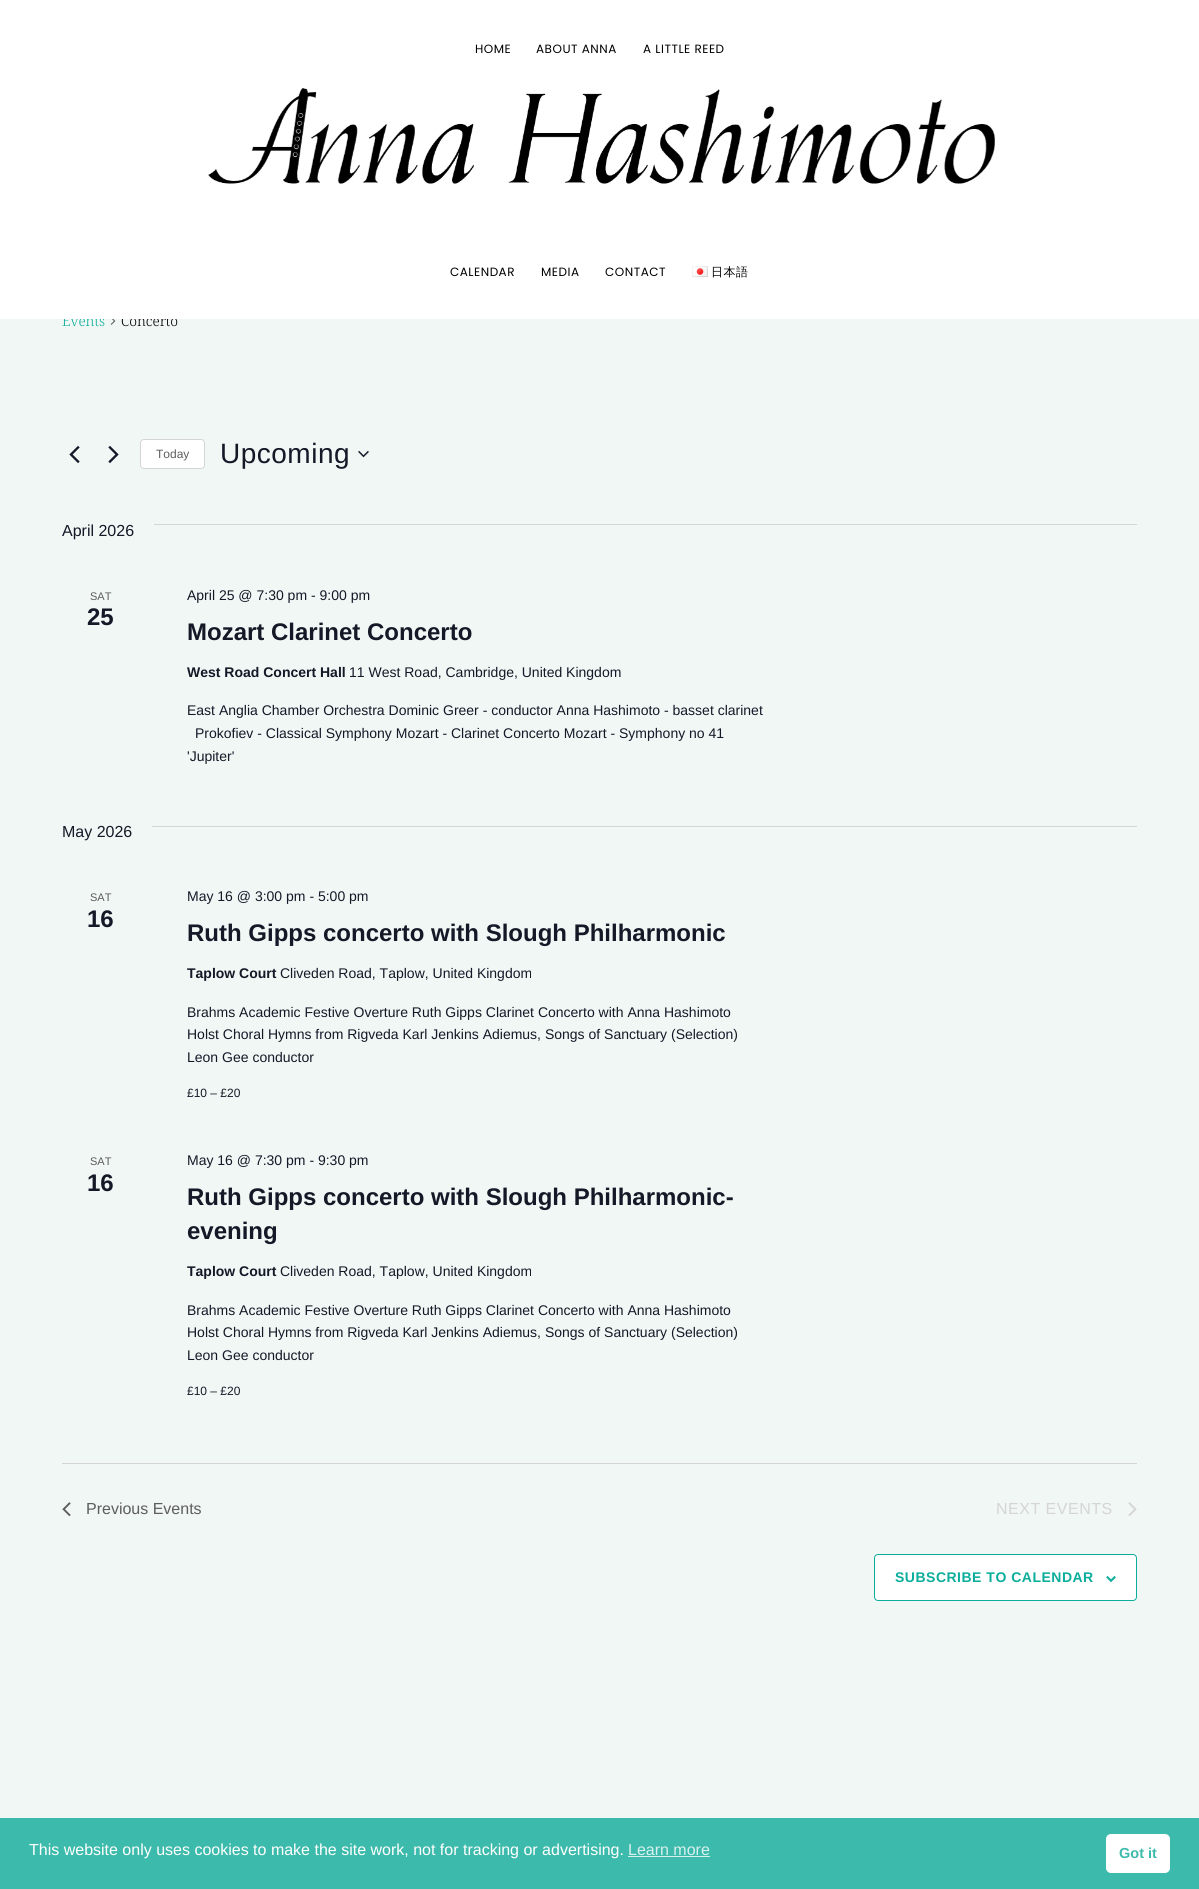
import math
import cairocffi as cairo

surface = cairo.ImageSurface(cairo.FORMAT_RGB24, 1199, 1889)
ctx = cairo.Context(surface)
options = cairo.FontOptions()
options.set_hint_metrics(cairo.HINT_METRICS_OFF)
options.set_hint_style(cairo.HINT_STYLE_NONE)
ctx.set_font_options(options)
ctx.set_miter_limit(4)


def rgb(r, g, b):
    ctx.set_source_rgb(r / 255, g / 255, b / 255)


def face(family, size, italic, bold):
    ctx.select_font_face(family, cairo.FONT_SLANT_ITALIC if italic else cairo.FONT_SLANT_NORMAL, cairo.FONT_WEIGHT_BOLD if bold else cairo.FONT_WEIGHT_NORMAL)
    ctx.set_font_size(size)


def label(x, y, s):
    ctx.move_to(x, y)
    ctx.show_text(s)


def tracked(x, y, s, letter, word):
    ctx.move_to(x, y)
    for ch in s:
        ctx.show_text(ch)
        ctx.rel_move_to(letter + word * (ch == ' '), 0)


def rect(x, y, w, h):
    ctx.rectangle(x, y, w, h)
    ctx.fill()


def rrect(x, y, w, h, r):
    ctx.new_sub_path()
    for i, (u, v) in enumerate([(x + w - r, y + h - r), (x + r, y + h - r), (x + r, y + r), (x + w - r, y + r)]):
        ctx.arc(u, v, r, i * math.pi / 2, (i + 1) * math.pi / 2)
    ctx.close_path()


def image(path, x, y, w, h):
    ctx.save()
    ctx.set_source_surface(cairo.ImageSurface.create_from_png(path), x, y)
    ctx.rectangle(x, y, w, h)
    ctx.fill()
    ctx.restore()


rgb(241, 247, 245)
ctx.paint()
face('Noto Serif Light', 14, 0, 0)
rgb(12, 174, 155)
label(62, 326, 'Events')
rgb(0, 0, 0)
label(121, 326, 'Concerto')
rgb(255, 255, 255)
rect(0, 0, 1199, 319)
face('Poppins', 12, 0, 0)
rgb(0, 0, 0)
tracked(475, 53, 'HOME', 0.5, 0)
tracked(536, 53, 'ABOUT ANNA', 0.5, 0)
tracked(643, 53, 'A LITTLE REED', 0.5, 0)
image('image0.png', 208, 88, 788, 96)
tracked(450, 276, 'CALENDAR', 0.5, 0)
tracked(541, 276, 'MEDIA', 0.5, 0)
tracked(605, 276, 'CONTACT', 0.5, 0)
image('image1.png', 692, 266, 16, 11)
face('WenQuanYi Zen Hei Medium', 12, 0, 0)
tracked(711, 276, '日本語', 0.5, 0)
image('image2.png', 110, 319, 6, 6)
image('image3.png', 69, 445, 11, 19)
image('image4.png', 108, 445, 11, 19)
rgb(255, 255, 255)
rrect(140.5, 439.5, 64, 29, 3.5)
ctx.fill_preserve()
rgb(213, 213, 213)
ctx.set_line_width(1)
ctx.stroke()
face('Liberation Sans', 12, 0, 0)
rgb(93, 93, 93)
label(156, 458, 'Today')
face('Liberation Sans', 28, 0, 0)
rgb(20, 24, 39)
tracked(220, 463, 'Upcoming', 0.5, 0)
image('image5.png', 358, 450, 11, 8)
face('Liberation Sans', 16, 0, 0)
label(62, 536, 'April 2026')
rgb(213, 213, 213)
rect(154, 524, 983, 1)
face('Liberation Sans', 11, 0, 0)
rgb(93, 93, 93)
label(90, 600, 'SAT')
face('Liberation Sans', 24, 0, 1)
rgb(20, 24, 39)
label(87, 625, '25')
face('Liberation Sans', 14, 0, 0)
label(187, 600, 'April 25 @ 7:30 pm - 9:00 pm')
face('Liberation Sans', 24, 0, 1)
label(187, 640, 'Mozart Clarinet Concerto')
face('Liberation Sans', 14, 0, 1)
label(187, 677, 'West Road Concert Hall')
face('Liberation Sans', 14, 0, 0)
label(349, 677, '11 West Road, Cambridge, United Kingdom')
label(187, 715, 'East Anglia Chamber Orchestra Dominic Greer - conductor Anna Hashimoto - basset clarinet')
label(195, 738, 'Prokofiev - Classical Symphony Mozart - Clarinet Concerto Mozart - Symphony no 41')
label(187, 761, '\'Jupiter\'')
face('Liberation Sans', 16, 0, 0)
label(62, 837, 'May 2026')
rgb(213, 213, 213)
rect(152, 826, 985, 1)
face('Liberation Sans', 11, 0, 0)
rgb(93, 93, 93)
label(90, 901, 'SAT')
face('Liberation Sans', 24, 0, 1)
rgb(20, 24, 39)
label(87, 927, '16')
face('Liberation Sans', 14, 0, 0)
label(187, 901, 'May 16 @ 3:00 pm - 5:00 pm')
face('Liberation Sans', 24, 0, 1)
label(187, 941, 'Ruth Gipps concerto with Slough Philharmonic')
face('Liberation Sans', 14, 0, 1)
label(187, 978, 'Taplow Court')
face('Liberation Sans', 14, 0, 0)
label(280, 978, 'Cliveden Road, Taplow, United Kingdom')
label(187, 1017, 'Brahms Academic Festive Overture Ruth Gipps Clarinet Concerto with Anna Hashimoto')
label(187, 1039, 'Holst Choral Hymns from Rigveda Karl Jenkins Adiemus, Songs of Sanctuary (Selection)')
label(187, 1062, 'Leon Gee conductor')
face('Liberation Sans', 12, 0, 0)
label(187, 1097, '£10 – £20')
face('Liberation Sans', 11, 0, 0)
rgb(93, 93, 93)
label(90, 1165, 'SAT')
face('Liberation Sans', 24, 0, 1)
rgb(20, 24, 39)
label(87, 1191, '16')
face('Liberation Sans', 14, 0, 0)
label(187, 1165, 'May 16 @ 7:30 pm - 9:30 pm')
face('Liberation Sans', 24, 0, 1)
label(187, 1205, 'Ruth Gipps concerto with Slough Philharmonic-')
label(187, 1239, 'evening')
face('Liberation Sans', 14, 0, 1)
label(187, 1276, 'Taplow Court')
face('Liberation Sans', 14, 0, 0)
label(280, 1276, 'Cliveden Road, Taplow, United Kingdom')
label(187, 1315, 'Brahms Academic Festive Overture Ruth Gipps Clarinet Concerto with Anna Hashimoto')
label(187, 1337, 'Holst Choral Hymns from Rigveda Karl Jenkins Adiemus, Songs of Sanctuary (Selection)')
label(187, 1360, 'Leon Gee conductor')
face('Liberation Sans', 12, 0, 0)
label(187, 1395, '£10 – £20')
rgb(213, 213, 213)
rect(62, 1463, 1075, 1)
image('image6.png', 62, 1502, 9, 14)
face('Liberation Sans', 16, 0, 0)
rgb(93, 93, 93)
label(86, 1514, 'Previous Events')
rgb(213, 213, 213)
tracked(996, 1514, 'NEXT EVENTS', 0.5, 0)
image('image7.png', 1128, 1502, 9, 14)
rgb(255, 255, 255)
rrect(874.5, 1554.5, 262, 46, 3.5)
ctx.fill_preserve()
rgb(12, 174, 155)
ctx.stroke()
face('Liberation Sans', 14, 0, 1)
tracked(895, 1582, 'SUBSCRIBE TO CALENDAR', 0.5, 0)
image('image8.png', 1106, 1576, 10, 6)
rgb(60, 186, 171)
rect(0, 1818, 1199, 71)
face('Liberation Sans', 16, 0, 0)
rgb(255, 255, 255)
label(29, 1855, 'This website only uses cookies to make the site work, not for tracking or advertising.')
rgb(216, 241, 238)
label(628, 1855, 'Learn more')
rect(628, 1856, 82, 1)
rgb(255, 255, 255)
rrect(1106, 1834, 64, 39, 5)
ctx.fill()
face('Liberation Sans', 14.5, 0, 1)
rgb(60, 186, 171)
label(1119, 1858, 'Got it')
surface.write_to_png('render.png')
